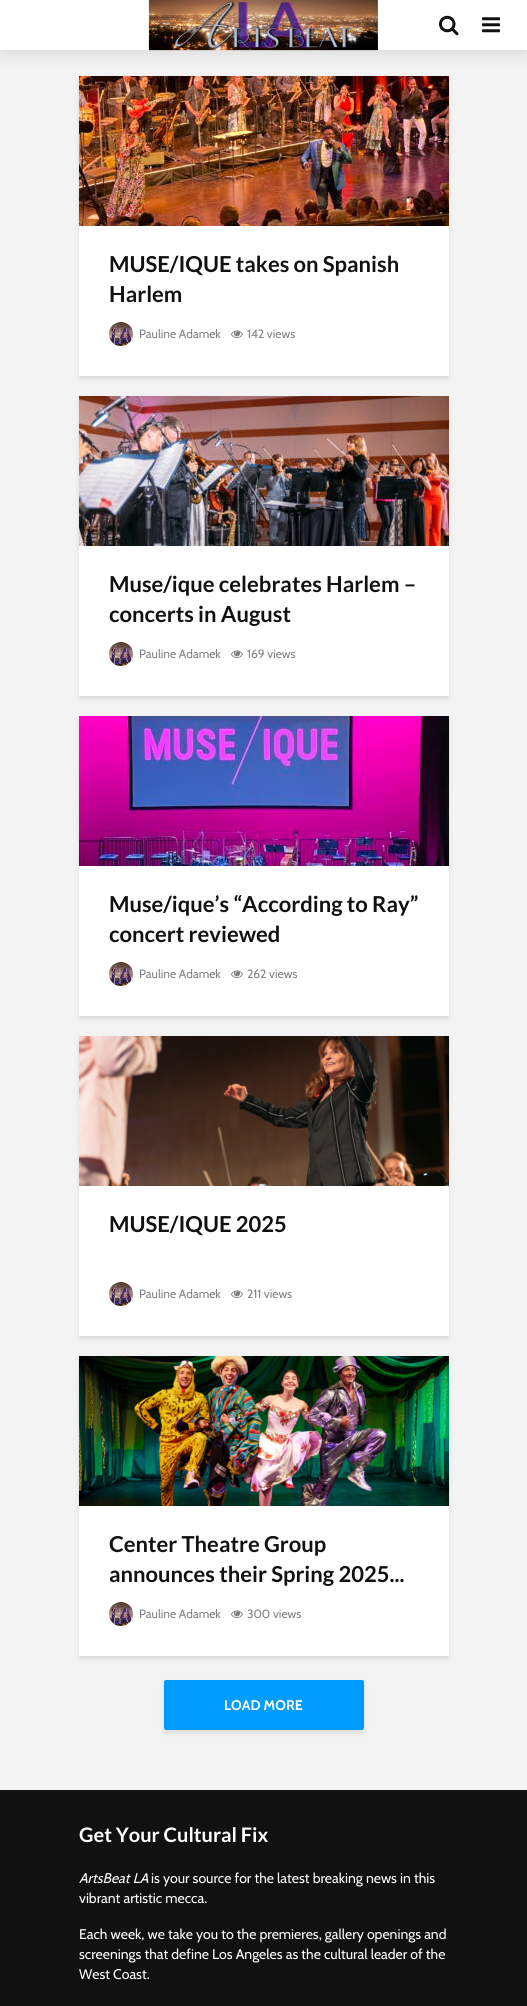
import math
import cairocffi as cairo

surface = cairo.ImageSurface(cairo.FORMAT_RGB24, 527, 2006)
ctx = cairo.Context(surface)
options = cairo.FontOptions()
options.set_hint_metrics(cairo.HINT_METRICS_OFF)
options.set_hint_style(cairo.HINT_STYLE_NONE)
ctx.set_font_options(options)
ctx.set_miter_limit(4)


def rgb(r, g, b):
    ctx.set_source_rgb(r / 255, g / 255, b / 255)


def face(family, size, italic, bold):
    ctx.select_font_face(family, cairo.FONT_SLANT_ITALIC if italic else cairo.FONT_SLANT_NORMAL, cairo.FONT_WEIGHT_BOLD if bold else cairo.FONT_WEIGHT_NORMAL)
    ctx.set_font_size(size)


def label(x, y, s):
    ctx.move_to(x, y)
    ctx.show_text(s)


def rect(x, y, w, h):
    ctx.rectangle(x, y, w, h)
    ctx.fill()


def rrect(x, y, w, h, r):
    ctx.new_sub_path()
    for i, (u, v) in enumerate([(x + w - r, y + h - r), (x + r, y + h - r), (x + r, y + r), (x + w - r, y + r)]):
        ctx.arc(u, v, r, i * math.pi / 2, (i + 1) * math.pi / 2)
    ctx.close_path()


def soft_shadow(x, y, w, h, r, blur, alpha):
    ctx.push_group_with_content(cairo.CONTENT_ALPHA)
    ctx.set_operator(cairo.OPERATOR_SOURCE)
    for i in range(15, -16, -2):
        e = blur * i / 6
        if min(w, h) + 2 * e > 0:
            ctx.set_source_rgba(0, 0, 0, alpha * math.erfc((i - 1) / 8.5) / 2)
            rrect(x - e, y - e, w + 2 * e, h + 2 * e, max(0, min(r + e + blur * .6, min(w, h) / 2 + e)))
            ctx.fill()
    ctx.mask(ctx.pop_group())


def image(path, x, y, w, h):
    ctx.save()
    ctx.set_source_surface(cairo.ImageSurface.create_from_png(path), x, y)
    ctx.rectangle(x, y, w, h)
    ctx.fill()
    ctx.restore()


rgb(243, 243, 243)
ctx.paint()
rgb(0, 1, 1)
soft_shadow(79, 79, 370, 300, 0, 2.5, 0.1)
image('image3.png', 79, 76, 370, 150)
rgb(0, 0, 0)
soft_shadow(0, 0, 527, 50, 0, 10, 0.15)
rgb(255, 255, 255)
rect(0, 0, 527, 50)
image('image0.png', 148, 0, 230, 51)
image('image1.png', 439, 15, 20, 21)
image('image2.png', 482, 17, 18, 16)
rect(79, 226, 370, 150)
face('Lato', 22, 0, 1)
rgb(17, 17, 17)
label(109, 272, 'MUSE/IQUE takes on Spanish')
label(109, 302, 'Harlem')
image('image4.png', 109, 322, 24, 24)
face('Cabin', 12, 0, 0)
rgb(129, 129, 129)
label(139, 338, 'Pauline Adamek')
image('image5.png', 231, 330, 12, 9)
label(247, 338, '142 views')
rgb(0, 1, 1)
soft_shadow(79, 399, 370, 300, 0, 2.5, 0.1)
rgb(255, 255, 255)
rect(79, 546, 370, 150)
image('image6.png', 79, 396, 370, 150)
face('Lato', 22, 0, 1)
rgb(17, 17, 17)
label(109, 592, 'Muse/ique celebrates Harlem –')
label(109, 622, 'concerts in August')
image('image4.png', 109, 642, 24, 24)
face('Cabin', 12, 0, 0)
rgb(129, 129, 129)
label(139, 658, 'Pauline Adamek')
image('image5.png', 231, 650, 12, 9)
label(247, 658, '169 views')
rgb(0, 1, 1)
soft_shadow(79, 719, 370, 300, 0, 2.5, 0.1)
rgb(255, 255, 255)
rect(79, 866, 370, 150)
image('image7.png', 79, 716, 370, 150)
face('Lato', 22, 0, 1)
rgb(17, 17, 17)
label(109, 912, 'Muse/ique’s “According to Ray”')
label(109, 942, 'concert reviewed')
image('image8.png', 109, 962, 24, 24)
face('Cabin', 12, 0, 0)
rgb(129, 129, 129)
label(139, 978, 'Pauline Adamek')
image('image5.png', 231, 970, 12, 9)
label(247, 978, '262 views')
rgb(0, 1, 1)
soft_shadow(79, 1039, 370, 300, 0, 2.5, 0.1)
rgb(255, 255, 255)
rect(79, 1186, 370, 150)
image('image9.png', 79, 1036, 370, 150)
face('Lato', 22, 0, 1)
rgb(17, 17, 17)
label(109, 1232, 'MUSE/IQUE 2025')
image('image4.png', 109, 1282, 24, 24)
face('Cabin', 12, 0, 0)
rgb(129, 129, 129)
label(139, 1298, 'Pauline Adamek')
image('image5.png', 231, 1290, 12, 9)
label(247, 1298, '211 views')
rgb(0, 1, 1)
soft_shadow(79, 1359, 370, 300, 0, 2.5, 0.1)
rgb(255, 255, 255)
rect(79, 1506, 370, 150)
image('image10.png', 79, 1356, 370, 150)
face('Lato', 22, 0, 1)
rgb(17, 17, 17)
label(109, 1552, 'Center Theatre Group')
label(109, 1582, 'announces their Spring 2025...')
image('image4.png', 109, 1602, 24, 24)
face('Cabin', 12, 0, 0)
rgb(129, 129, 129)
label(139, 1618, 'Pauline Adamek')
image('image5.png', 231, 1610, 12, 9)
label(247, 1618, '300 views')
rgb(0, 0, 0)
soft_shadow(164, 1683, 200, 50, 2, 2.5, 0.1)
rgb(0, 156, 255)
rrect(164, 1680, 200, 50, 2)
ctx.fill()
face('Cabin', 14, 0, 1)
rgb(255, 255, 255)
label(224, 1710, 'LOAD MORE')
rgb(17, 17, 17)
rect(0, 1790, 527, 216)
face('Lato', 20, 0, 1)
rgb(255, 255, 255)
label(79, 1842, 'Get Your Cultural Fix')
face('Cabin', 14, 1, 0)
label(79, 1883, 'ArtsBeat LA')
face('Cabin', 14, 0, 0)
label(151, 1883, 'is your source for the latest breaking news in this')
label(79, 1903, 'vibrant artistic mecca.')
label(79, 1939, 'Each week, we take you to the premieres, gallery openings and')
label(79, 1959, 'screenings that define Los Angeles as the cultural leader of the')
label(79, 1979, 'West Coast.')
surface.write_to_png('render.png')
